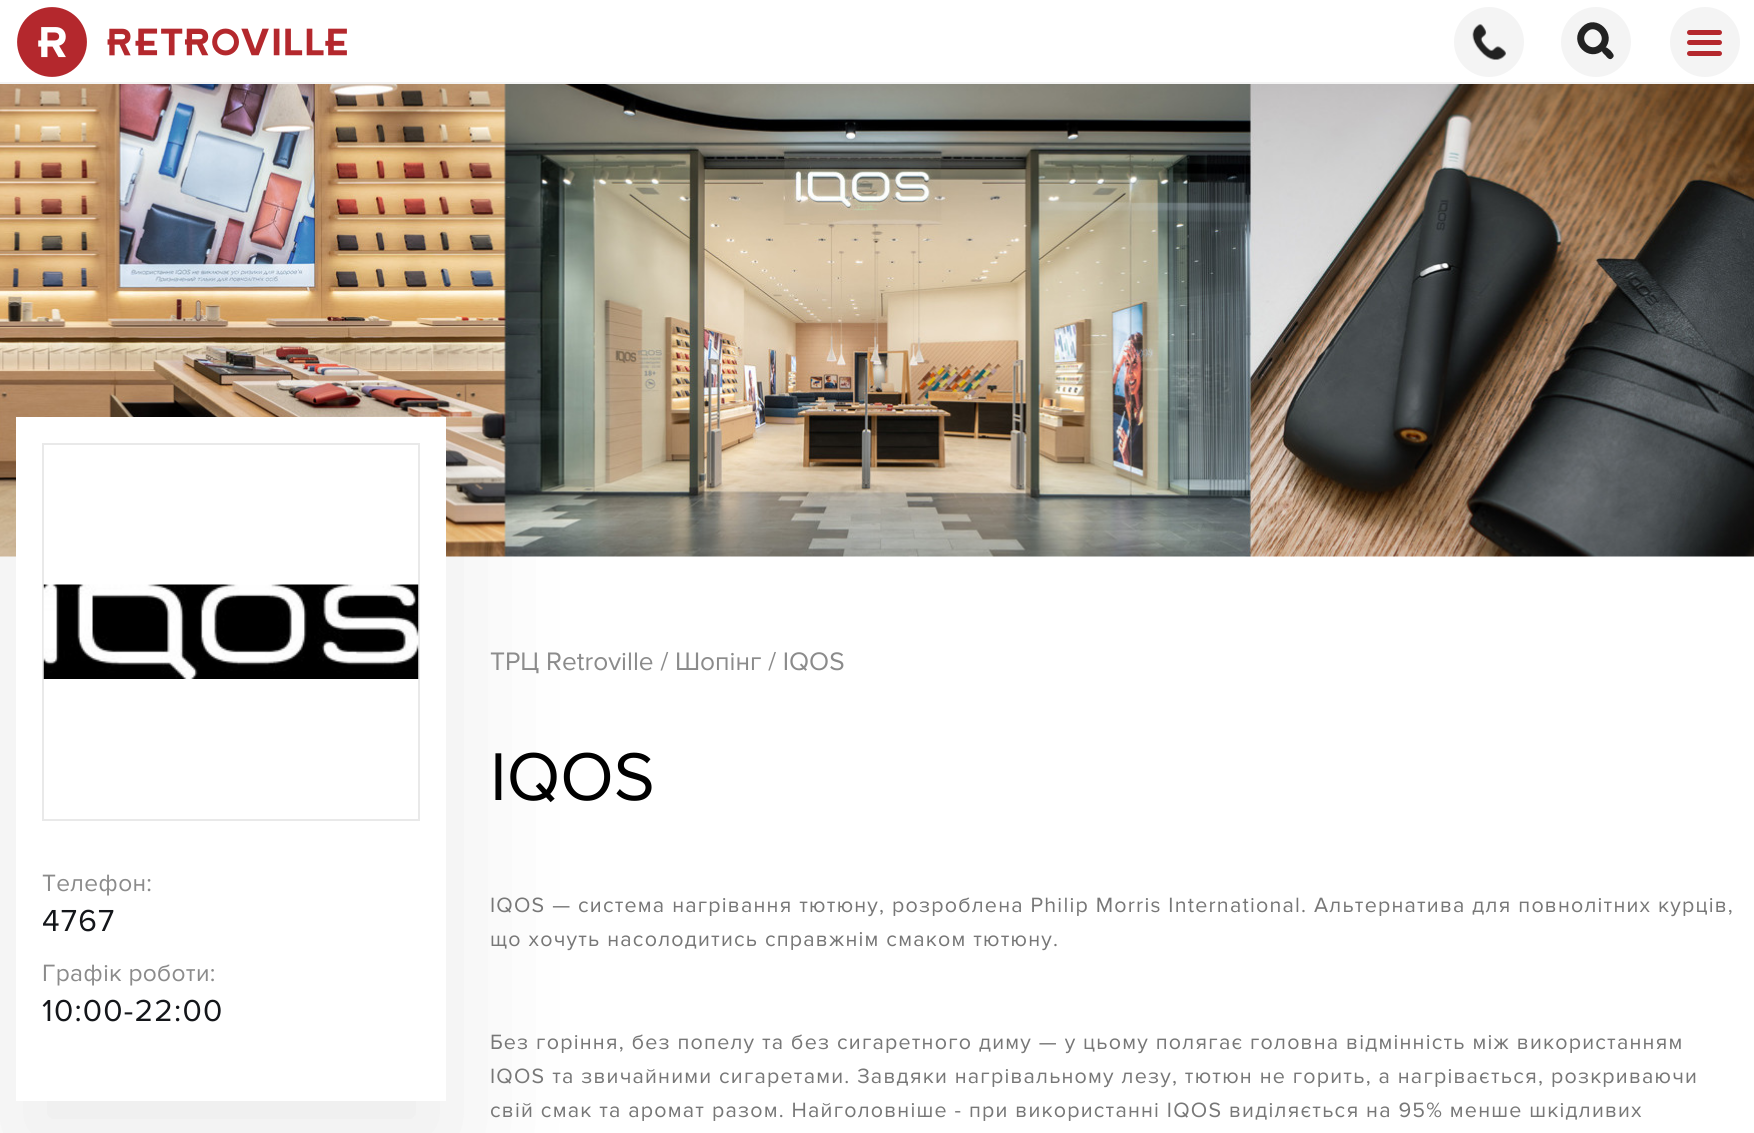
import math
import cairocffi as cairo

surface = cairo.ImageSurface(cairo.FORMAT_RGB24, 1754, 1133)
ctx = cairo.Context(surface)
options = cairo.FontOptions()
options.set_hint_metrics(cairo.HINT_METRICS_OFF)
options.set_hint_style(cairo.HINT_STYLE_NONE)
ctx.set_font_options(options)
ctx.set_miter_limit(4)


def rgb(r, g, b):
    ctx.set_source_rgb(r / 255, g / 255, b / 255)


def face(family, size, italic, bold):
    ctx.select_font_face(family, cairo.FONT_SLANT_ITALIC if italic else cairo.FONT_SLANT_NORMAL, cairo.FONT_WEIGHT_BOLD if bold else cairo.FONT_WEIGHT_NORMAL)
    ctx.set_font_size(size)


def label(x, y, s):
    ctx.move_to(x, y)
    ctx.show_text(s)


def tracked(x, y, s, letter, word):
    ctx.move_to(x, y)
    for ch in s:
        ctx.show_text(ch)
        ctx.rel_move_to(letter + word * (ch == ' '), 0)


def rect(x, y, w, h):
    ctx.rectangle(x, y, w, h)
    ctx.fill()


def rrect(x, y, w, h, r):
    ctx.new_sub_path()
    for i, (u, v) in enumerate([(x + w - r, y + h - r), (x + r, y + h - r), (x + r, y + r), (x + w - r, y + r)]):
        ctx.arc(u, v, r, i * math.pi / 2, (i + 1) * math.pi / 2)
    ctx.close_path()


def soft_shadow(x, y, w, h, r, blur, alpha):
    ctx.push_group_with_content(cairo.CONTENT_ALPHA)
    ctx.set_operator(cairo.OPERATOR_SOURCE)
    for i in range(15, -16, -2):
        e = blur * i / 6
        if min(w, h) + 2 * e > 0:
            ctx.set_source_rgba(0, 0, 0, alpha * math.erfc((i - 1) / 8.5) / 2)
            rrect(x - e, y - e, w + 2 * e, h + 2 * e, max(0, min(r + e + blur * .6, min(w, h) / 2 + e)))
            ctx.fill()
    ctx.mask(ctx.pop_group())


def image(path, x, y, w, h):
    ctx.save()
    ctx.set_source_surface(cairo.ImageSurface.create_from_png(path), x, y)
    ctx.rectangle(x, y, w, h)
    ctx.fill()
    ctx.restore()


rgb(255, 255, 255)
ctx.paint()
rgb(244, 244, 244)
rect(0, 82, 1754, 2)
image('image0.png', 17, 7, 330, 70)
ctx.arc(1489, 42, 35, 0, 2 * math.pi)
ctx.fill()
image('image1.png', 1472, 24, 34, 36)
ctx.arc(1596, 42, 35, 0, 2 * math.pi)
ctx.fill()
ctx.new_path()
ctx.move_to(1584.5, 29.5)
ctx.curve_to(1595.5, 18, 1613, 35.5, 1601.5, 47)
ctx.curve_to(1590, 58.5, 1573, 41, 1584.5, 29.5)
ctx.close_path()
rgb(34, 34, 34)
ctx.set_line_width(7)
ctx.stroke()
ctx.new_path()
ctx.move_to(1603, 48)
ctx.curve_to(1605.5, 45.5, 1608.5, 49, 1610.5, 50.5)
ctx.curve_to(1612, 52.5, 1615.5, 55.5, 1612.5, 58)
ctx.curve_to(1610, 61, 1607, 57.5, 1605.5, 55.5)
ctx.curve_to(1603.5, 53.5, 1600, 51, 1603, 48)
ctx.close_path()
ctx.fill()
rgb(244, 244, 244)
ctx.arc(1705, 42, 35, 0, 2 * math.pi)
ctx.fill()
rgb(180, 40, 45)
rrect(1687, 40, 35, 5, 2.5)
ctx.fill()
rrect(1687, 30, 35, 5, 2.5)
ctx.fill()
rrect(1687, 51, 35, 5, 2.5)
ctx.fill()
image('image2.png', 0, 84, 1754, 473)
rgb(0, 0, 0)
soft_shadow(11, 460, 441, 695, 0, 72, 0.08)
rgb(255, 255, 255)
rect(16, 417, 430, 684)
ctx.rectangle(43, 444, 376, 376)
rgb(233, 233, 233)
ctx.set_line_width(2)
ctx.stroke()
image('image3.png', 43, 584, 376, 95)
face('Proxima Nova', 24.5, 0, 0)
rgb(139, 139, 139)
tracked(42, 891, 'Телефон:', 0.3, 0)
face('Proxima Nova', 31.5, 0, 0)
rgb(20, 22, 26)
tracked(42, 931, '4767', 1.22, 0)
face('Proxima Nova', 24.5, 0, 0)
rgb(139, 139, 139)
tracked(42, 981, 'Графік роботи:', 0.3, 0)
face('Proxima Nova', 31.5, 0, 0)
rgb(20, 22, 26)
tracked(42, 1021, '10:00-22:00', 1.22, 0)
face('Proxima Nova', 26.25, 0, 0)
rgb(139, 139, 139)
label(490, 670, 'ТРЦ Retroville / Шопінг / IQOS')
face('Proxima Nova', 70, 0, 0)
rgb(0, 0, 0)
label(490, 800, 'IQOS')
face('Proxima Nova', 21.45, 0, 0)
rgb(119, 119, 119)
tracked(490, 912, 'IQOS — система нагрівання тютюну, розроблена Philip Morris International. Альтернатива для повнолітних курців,', 1.22, 0)
tracked(490, 946, 'що хочуть насолодитись справжнім смаком тютюну.', 1.22, 0)
tracked(490, 1049, 'Без горіння, без попелу та без сигаретного диму — у цьому полягає головна відмінність між використанням', 1.22, 0)
tracked(490, 1083, 'IQOS та звичайними сигаретами. Завдяки нагрівальному лезу, тютюн не горить, а нагрівається, розкриваючи', 1.22, 0)
tracked(490, 1117, 'свій смак та аромат разом. Найголовніше - при використанні IQOS виділяється на 95% менше шкідливих', 1.22, 0)
surface.write_to_png('render.png')
